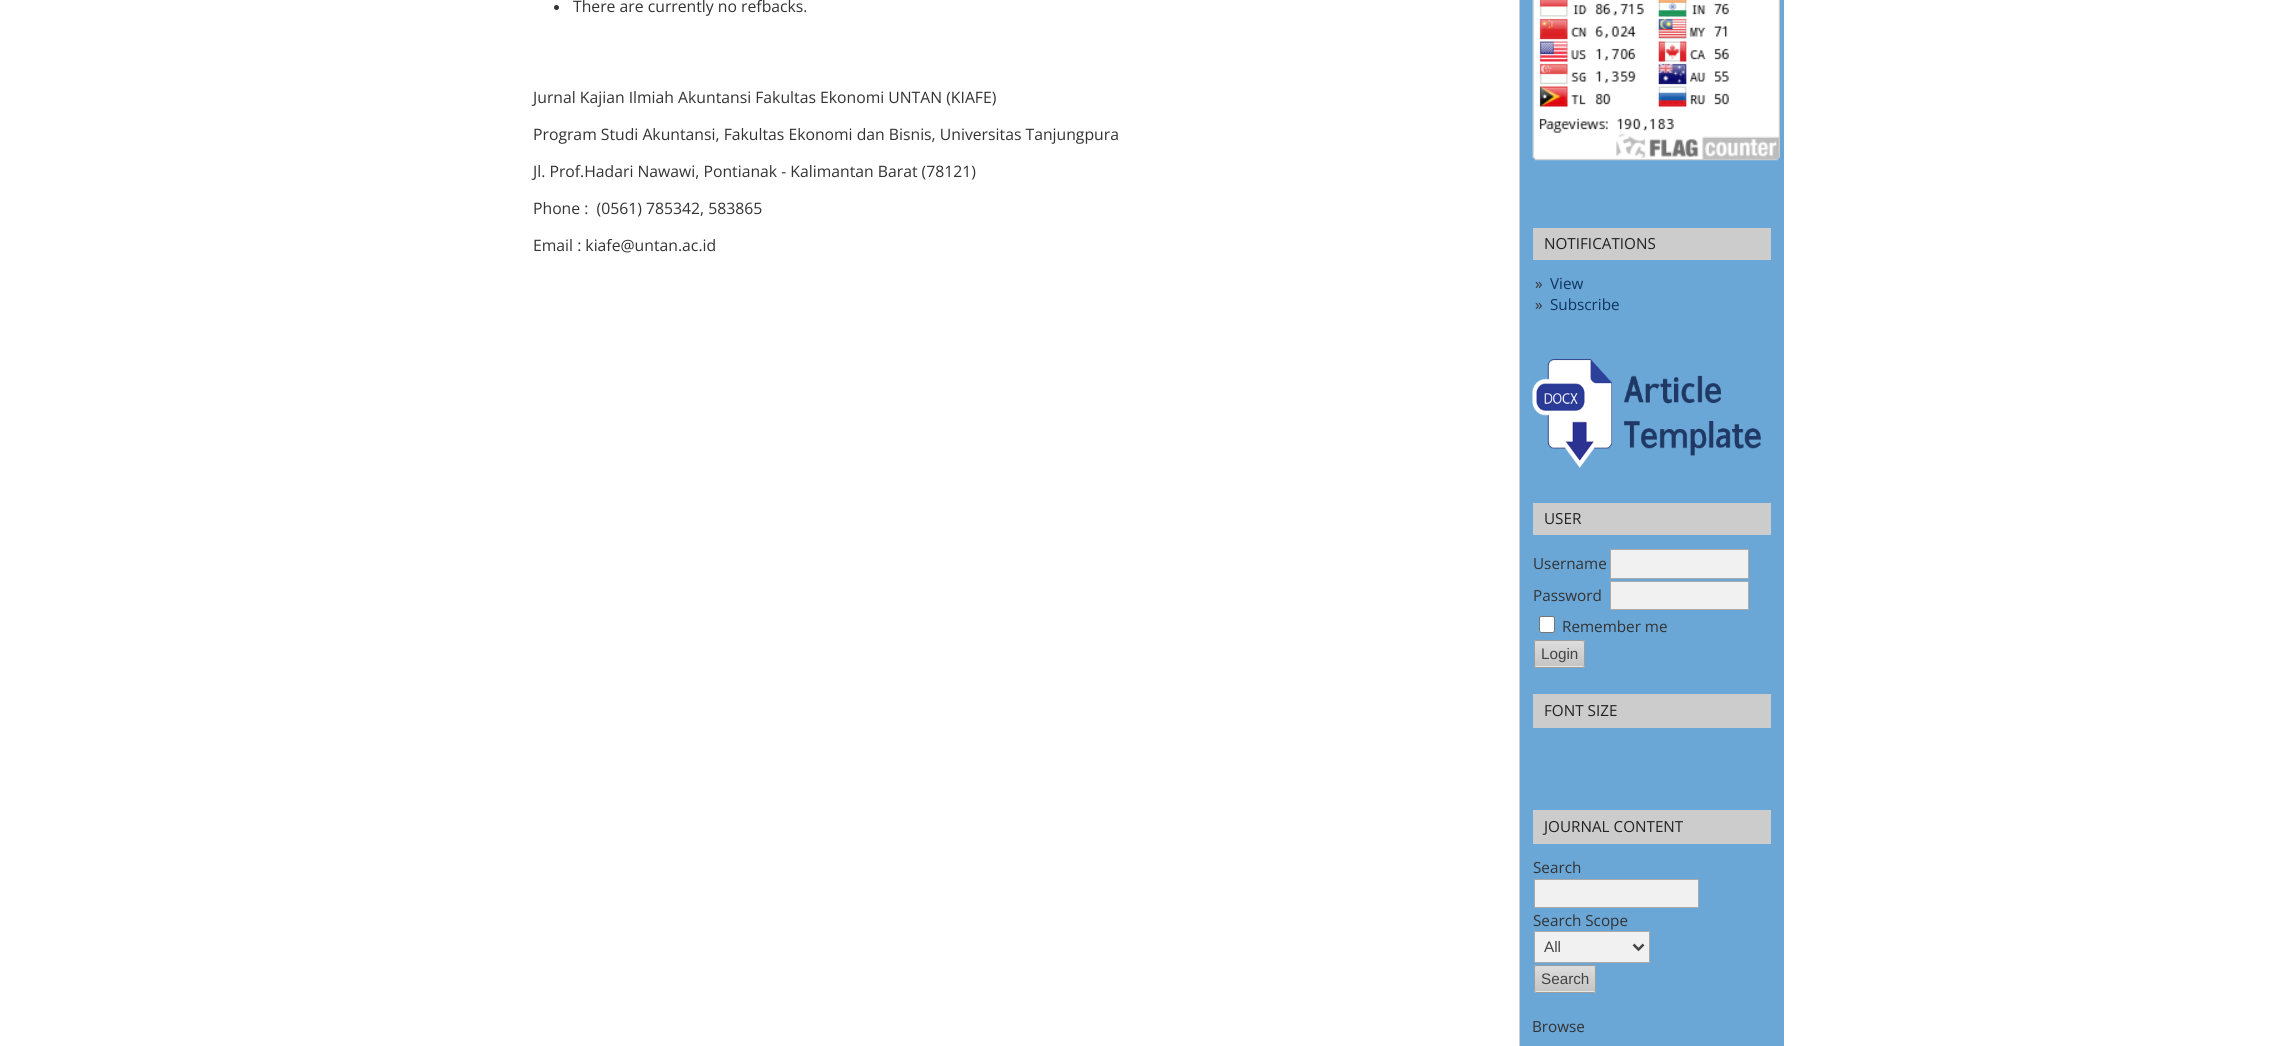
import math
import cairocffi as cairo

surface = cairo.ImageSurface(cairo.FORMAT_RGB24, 2291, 1046)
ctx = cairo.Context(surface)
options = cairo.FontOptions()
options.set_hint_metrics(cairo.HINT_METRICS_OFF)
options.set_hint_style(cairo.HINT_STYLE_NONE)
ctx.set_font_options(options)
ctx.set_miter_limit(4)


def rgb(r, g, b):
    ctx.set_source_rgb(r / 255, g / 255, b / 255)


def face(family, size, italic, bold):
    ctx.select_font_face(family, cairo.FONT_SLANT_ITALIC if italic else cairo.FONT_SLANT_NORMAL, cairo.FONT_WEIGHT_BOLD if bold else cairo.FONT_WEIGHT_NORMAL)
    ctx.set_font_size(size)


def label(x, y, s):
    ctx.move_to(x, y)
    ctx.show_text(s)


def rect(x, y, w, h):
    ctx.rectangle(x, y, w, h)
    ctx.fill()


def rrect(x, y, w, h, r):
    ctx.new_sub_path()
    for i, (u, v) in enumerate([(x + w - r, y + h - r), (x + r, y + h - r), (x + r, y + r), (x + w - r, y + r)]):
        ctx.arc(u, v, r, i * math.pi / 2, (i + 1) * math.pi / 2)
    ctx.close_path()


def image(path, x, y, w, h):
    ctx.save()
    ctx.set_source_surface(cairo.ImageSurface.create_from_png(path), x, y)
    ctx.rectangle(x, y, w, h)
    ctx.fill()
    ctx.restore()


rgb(255, 255, 255)
ctx.paint()
rgb(51, 51, 51)
ctx.arc(556.5, 7.5, 2.5, 0, 2 * math.pi)
ctx.fill()
face('Open Sans', 15.75, 0, 0)
label(573, 12, 'There are currently no refbacks.')
label(533, 103, 'Jurnal Kajian Ilmiah Akuntansi Fakultas Ekonomi UNTAN (KIAFE)')
label(533, 140, 'Program Studi Akuntansi, Fakultas Ekonomi dan Bisnis, Universitas Tanjungpura')
label(533, 177, 'Jl. Prof.Hadari Nawawi, Pontianak - Kalimantan Barat (78121)')
label(533, 214, 'Phone :  (0561) 785342, 583865')
label(533, 251, 'Email : kiafe@untan.ac.id')
rgb(106, 166, 214)
rect(1520, 0, 264, 1046)
rgb(204, 204, 204)
rect(1519, 0, 1, 1046)
image('image0.png', 1532, 0, 248, 161)
rect(1533, 228, 238, 32)
face('Open Sans', 15.25, 0, 0)
rgb(34, 34, 34)
label(1544, 249, 'NOTIFICATIONS')
rgb(51, 51, 51)
label(1535, 289, '»')
rgb(13, 53, 94)
label(1550, 289, 'View')
rgb(51, 51, 51)
label(1535, 310, '»')
rgb(13, 53, 94)
label(1550, 310, 'Subscribe')
image('image1.png', 1532, 359, 229, 109)
rgb(204, 204, 204)
rect(1533, 503, 238, 32)
rgb(34, 34, 34)
label(1544, 524, 'USER')
rgb(51, 51, 51)
label(1533, 569, 'Username')
rgb(241, 241, 241)
ctx.rectangle(1610.5, 549.5, 138, 29)
ctx.fill_preserve()
rgb(170, 170, 170)
ctx.set_line_width(1)
ctx.stroke()
rgb(51, 51, 51)
label(1533, 601, 'Password')
rgb(241, 241, 241)
ctx.rectangle(1610.5, 581.5, 138, 28)
ctx.fill_preserve()
rgb(170, 170, 170)
ctx.stroke()
rgb(255, 255, 255)
rrect(1539.5, 616.5, 15, 16, 2)
ctx.fill_preserve()
rgb(118, 118, 118)
ctx.stroke()
rgb(51, 51, 51)
label(1562, 632, 'Remember me')
rgb(232, 232, 225)
rrect(1534, 640, 51, 28, 2.5)
ctx.fill()
gradient = cairo.LinearGradient(1559, 641, 1559, 666)
gradient.add_color_stop_rgba(0, 0.867, 0.867, 0.867, 1)
gradient.add_color_stop_rgba(1, 0.769, 0.769, 0.769, 1)
ctx.set_source(gradient)
rect(1534, 641, 51, 25)
rrect(1534.5, 640.5, 50, 27, 2)
rgb(157, 157, 157)
ctx.stroke()
face('Liberation Sans', 15.25, 0, 0)
rgb(68, 68, 68)
label(1541, 659, 'Login')
rgb(204, 204, 204)
rect(1533, 694, 238, 34)
face('Open Sans', 15.25, 0, 0)
rgb(34, 34, 34)
label(1544, 716, 'FONT SIZE')
rgb(204, 204, 204)
rect(1533, 810, 238, 34)
rgb(34, 34, 34)
label(1544, 832, 'JOURNAL CONTENT')
rgb(51, 51, 51)
label(1533, 873, 'Search')
rgb(241, 241, 241)
ctx.rectangle(1534.5, 879.5, 164, 28)
ctx.fill_preserve()
rgb(170, 170, 170)
ctx.stroke()
rgb(51, 51, 51)
label(1533, 926, 'Search Scope')
rgb(241, 241, 241)
ctx.rectangle(1534.5, 931.5, 115, 31)
ctx.fill_preserve()
rgb(170, 170, 170)
ctx.stroke()
ctx.new_path()
ctx.move_to(1633.5, 944.5)
ctx.line_to(1638.5, 949.5)
ctx.line_to(1643.5, 944.5)
rgb(68, 68, 68)
ctx.set_line_width(2.5)
ctx.stroke()
face('Liberation Sans', 15.25, 0, 0)
label(1544, 952, 'All')
rgb(232, 232, 225)
rrect(1534, 965, 62, 28, 2.5)
ctx.fill()
gradient = cairo.LinearGradient(1565, 966, 1565, 991)
gradient.add_color_stop_rgba(0, 0.867, 0.867, 0.867, 1)
gradient.add_color_stop_rgba(1, 0.769, 0.769, 0.769, 1)
ctx.set_source(gradient)
rect(1534, 966, 62, 25)
rrect(1534.5, 965.5, 61, 27, 2)
rgb(157, 157, 157)
ctx.set_line_width(1)
ctx.stroke()
rgb(68, 68, 68)
label(1541, 984, 'Search')
face('Open Sans', 15.25, 0, 0)
rgb(51, 51, 51)
label(1532, 1032, 'Browse')
surface.write_to_png('render.png')
